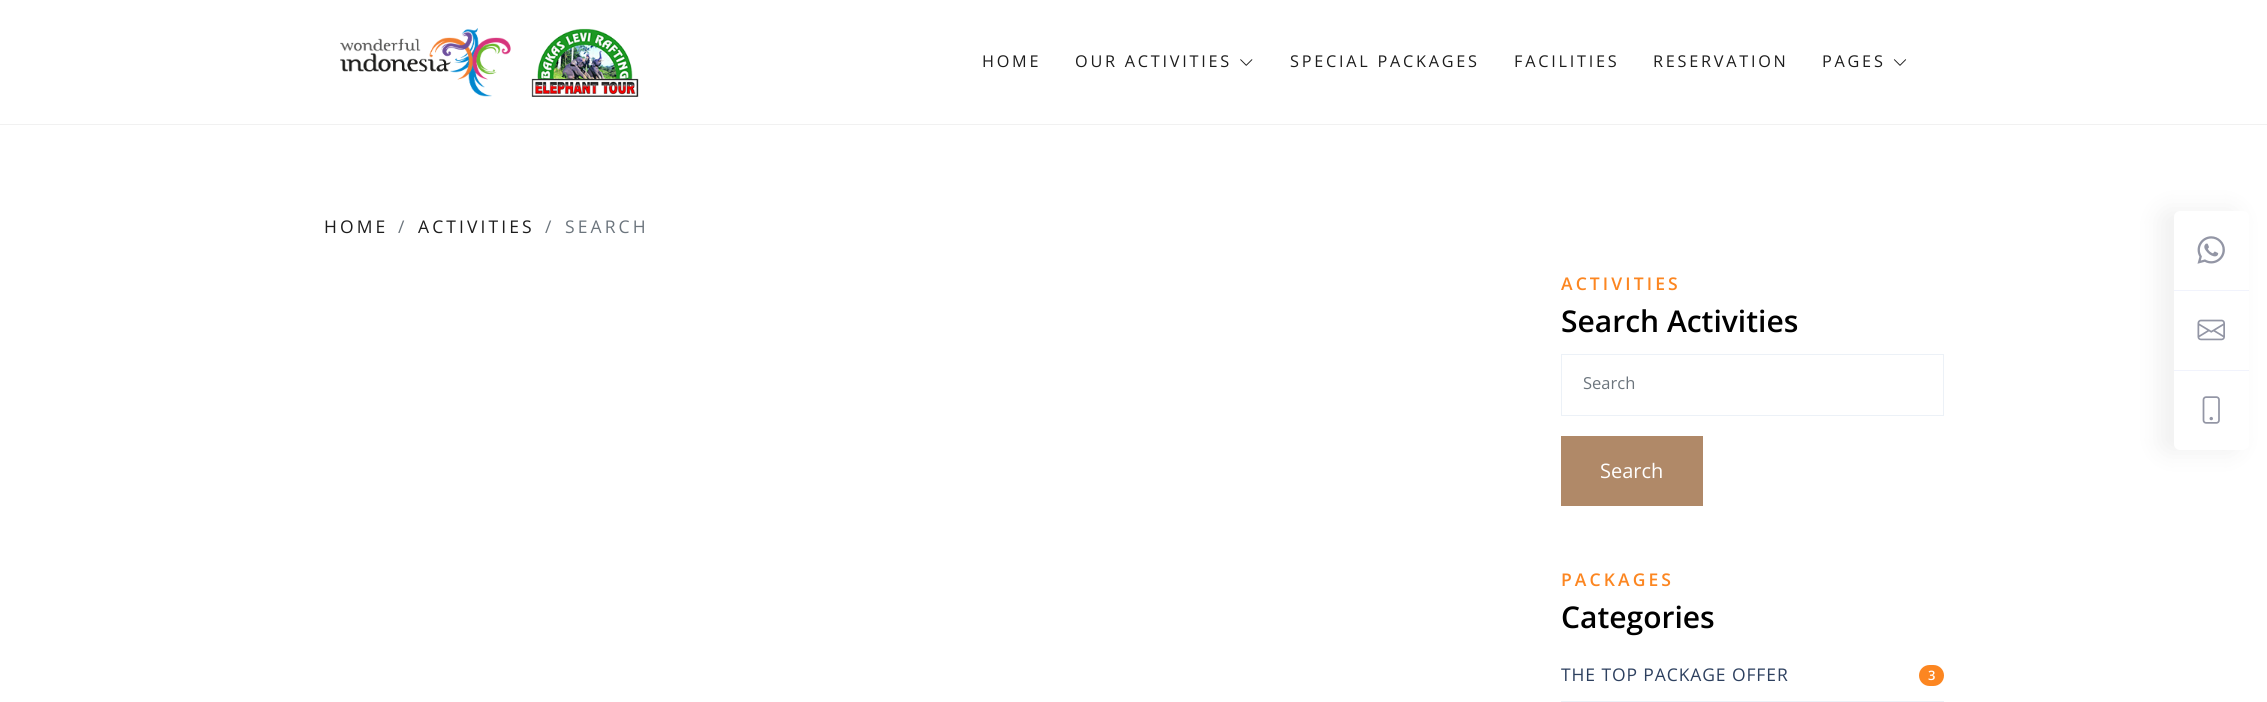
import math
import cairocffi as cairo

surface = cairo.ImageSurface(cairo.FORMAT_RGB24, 2267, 702)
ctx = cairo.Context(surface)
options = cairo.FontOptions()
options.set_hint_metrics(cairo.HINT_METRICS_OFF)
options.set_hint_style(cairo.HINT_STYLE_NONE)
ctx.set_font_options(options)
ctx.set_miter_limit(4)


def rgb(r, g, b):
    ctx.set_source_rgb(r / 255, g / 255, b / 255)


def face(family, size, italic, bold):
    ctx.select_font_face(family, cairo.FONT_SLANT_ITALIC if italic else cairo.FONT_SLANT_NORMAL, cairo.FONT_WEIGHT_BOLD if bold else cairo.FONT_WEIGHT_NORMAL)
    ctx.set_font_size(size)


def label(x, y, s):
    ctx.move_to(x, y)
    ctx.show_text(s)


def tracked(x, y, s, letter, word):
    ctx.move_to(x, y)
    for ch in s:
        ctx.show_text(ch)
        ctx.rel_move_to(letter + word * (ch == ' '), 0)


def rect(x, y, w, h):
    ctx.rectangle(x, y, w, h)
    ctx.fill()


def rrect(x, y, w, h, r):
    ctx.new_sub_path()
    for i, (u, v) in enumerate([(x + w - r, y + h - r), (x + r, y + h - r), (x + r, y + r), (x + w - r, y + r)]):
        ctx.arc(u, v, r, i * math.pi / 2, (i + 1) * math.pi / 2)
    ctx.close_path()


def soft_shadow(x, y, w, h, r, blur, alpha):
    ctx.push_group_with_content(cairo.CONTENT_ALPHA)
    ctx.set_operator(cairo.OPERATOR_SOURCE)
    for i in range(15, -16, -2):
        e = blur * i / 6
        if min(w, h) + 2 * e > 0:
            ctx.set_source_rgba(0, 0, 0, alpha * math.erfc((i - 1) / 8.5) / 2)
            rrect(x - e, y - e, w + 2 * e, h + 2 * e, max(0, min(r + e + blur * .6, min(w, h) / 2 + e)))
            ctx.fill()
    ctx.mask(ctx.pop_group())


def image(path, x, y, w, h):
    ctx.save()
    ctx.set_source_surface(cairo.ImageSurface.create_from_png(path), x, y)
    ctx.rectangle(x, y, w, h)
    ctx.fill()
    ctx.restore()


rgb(255, 255, 255)
ctx.paint()
rgb(241, 241, 241)
rect(0, 124, 2267, 1)
image('image0.png', 340, 28, 171, 69)
image('image1.png', 531, 28, 108, 69)
face('Open Sans', 16.25, 0, 0)
rgb(29, 29, 29)
tracked(982, 67, 'HOME', 2.75, 0)
tracked(1075, 67, 'OUR ACTIVITIES', 2.75, 0)
image('image2.png', 1240, 59, 13, 7)
tracked(1290, 67, 'SPECIAL PACKAGES', 2.75, 0)
tracked(1514, 67, 'FACILITIES', 2.75, 0)
tracked(1653, 67, 'RESERVATION', 2.75, 0)
tracked(1822, 67, 'PAGES', 2.75, 0)
image('image3.png', 1893, 59, 14, 7)
face('Open Sans', 17.5, 0, 0)
tracked(324, 233, 'HOME', 3.1, 0)
rgb(108, 117, 125)
tracked(398, 233, '/', 3.1, 0)
rgb(29, 29, 29)
tracked(418, 233, 'ACTIVITIES', 3.1, 0)
rgb(108, 117, 125)
tracked(545, 233, '/', 3.1, 0)
tracked(565, 233, 'SEARCH', 3.1, 0)
rgb(0, 0, 0)
soft_shadow(2159, 209, 80, 244, 9, 12.5, 0.06)
rgb(255, 255, 255)
rrect(2174, 211, 75, 239, 6)
ctx.fill()
rgb(241, 243, 252)
rect(2174, 290, 75, 1)
image('image4.png', 2197, 236, 28, 28)
rect(2174, 370, 75, 1)
image('image5.png', 2197, 319, 28, 22)
image('image6.png', 2202, 396, 18, 28)
face('Open Sans SemiBold', 17.5, 0, 0)
rgb(252, 134, 33)
tracked(1561, 290, 'ACTIVITIES', 3.1, 0)
face('Open Sans SemiBold', 30, 0, 0)
rgb(0, 0, 0)
label(1561, 332, 'Search Activities')
ctx.rectangle(1561.5, 354.5, 382, 61)
rgb(236, 241, 247)
ctx.set_line_width(1)
ctx.stroke()
face('Open Sans', 16.5, 0, 0)
rgb(108, 117, 125)
label(1583, 389, 'Search')
rgb(176, 137, 104)
rect(1561, 436, 142, 70)
face('Open Sans', 20, 0, 0)
rgb(255, 255, 255)
label(1600, 478, 'Search')
face('Open Sans SemiBold', 17.5, 0, 0)
rgb(252, 134, 33)
tracked(1561, 586, 'PACKAGES', 3.1, 0)
face('Open Sans SemiBold', 30, 0, 0)
rgb(0, 0, 0)
label(1561, 628, 'Categories')
rgb(236, 241, 247)
rect(1561, 701, 383, 1)
face('Open Sans', 17.5, 0, 0)
rgb(45, 64, 95)
tracked(1561, 681, 'THE TOP PACKAGE OFFER', 0.9, 0)
rgb(252, 134, 33)
rrect(1919, 665, 25, 21, 10.5)
ctx.fill()
face('Open Sans SemiBold', 13, 0, 0)
rgb(255, 255, 255)
label(1928, 680, '3')
surface.write_to_png('render.png')
